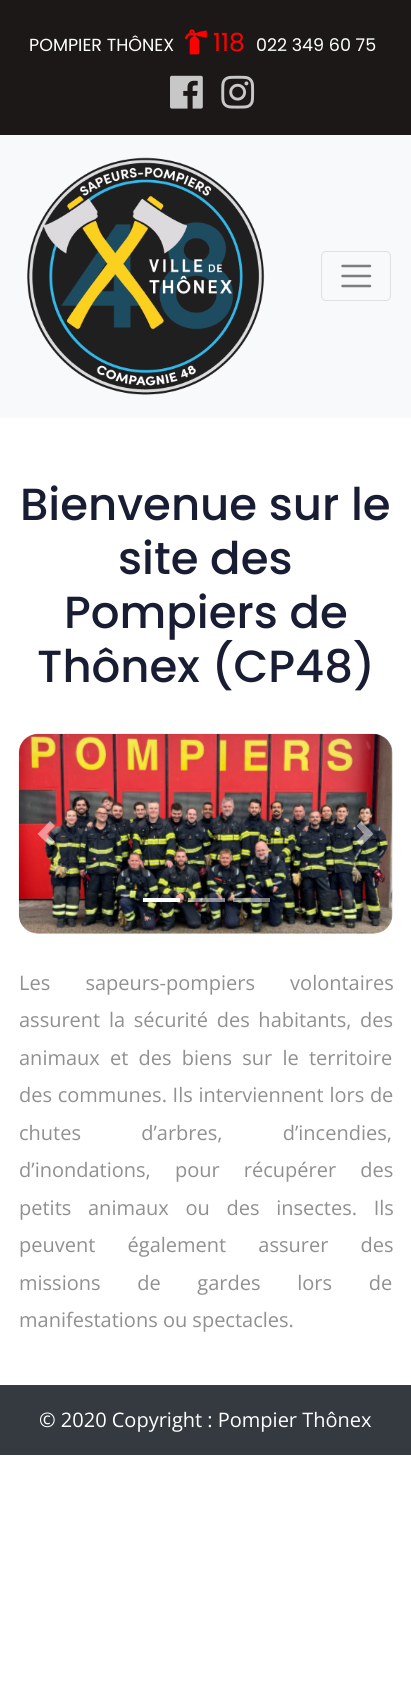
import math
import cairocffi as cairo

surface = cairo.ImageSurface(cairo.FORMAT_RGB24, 411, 1692)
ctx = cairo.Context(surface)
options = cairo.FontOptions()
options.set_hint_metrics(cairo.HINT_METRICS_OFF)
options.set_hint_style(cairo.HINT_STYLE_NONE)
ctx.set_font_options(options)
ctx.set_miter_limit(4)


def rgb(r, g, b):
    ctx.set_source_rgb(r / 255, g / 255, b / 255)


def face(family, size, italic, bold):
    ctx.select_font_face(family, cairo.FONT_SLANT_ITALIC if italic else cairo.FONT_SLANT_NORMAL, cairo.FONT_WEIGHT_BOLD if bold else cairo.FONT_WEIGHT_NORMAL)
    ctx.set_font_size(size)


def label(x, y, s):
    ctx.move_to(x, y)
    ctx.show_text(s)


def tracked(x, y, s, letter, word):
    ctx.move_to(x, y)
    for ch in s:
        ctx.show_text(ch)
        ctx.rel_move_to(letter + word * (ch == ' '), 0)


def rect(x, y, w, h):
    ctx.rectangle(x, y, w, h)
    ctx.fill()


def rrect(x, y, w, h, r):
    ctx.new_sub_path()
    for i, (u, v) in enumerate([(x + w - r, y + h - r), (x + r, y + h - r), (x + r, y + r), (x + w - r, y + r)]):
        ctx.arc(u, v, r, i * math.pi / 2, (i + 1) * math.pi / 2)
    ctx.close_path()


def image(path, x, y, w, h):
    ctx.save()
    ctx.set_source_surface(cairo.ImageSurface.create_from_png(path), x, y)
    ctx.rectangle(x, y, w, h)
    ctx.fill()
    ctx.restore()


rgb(255, 255, 255)
ctx.paint()
rgb(28, 24, 24)
rect(0, 0, 411, 135)
face('Poppins', 17.5, 0, 0)
rgb(255, 255, 255)
label(29, 51, 'POMPIER THÔNEX')
image('image0.png', 185, 29, 22, 26)
face('Poppins', 25, 0, 0)
rgb(255, 0, 0)
label(213, 51, '118')
face('Poppins', 17.5, 0, 0)
rgb(255, 255, 255)
label(256, 51, '022 349 60 75')
image('image1.png', 170, 75, 33, 34)
image('image2.png', 221, 75, 34, 34)
rgb(248, 249, 250)
rect(0, 135, 411, 283)
image('image3.png', 27, 157, 238, 238)
rrect(321.5, 251.5, 69, 49, 4.5)
rgb(223, 224, 225)
ctx.set_line_width(1)
ctx.stroke()
ctx.new_path()
ctx.move_to(342.5, 266)
ctx.line_to(370, 266)
ctx.move_to(342.5, 276)
ctx.line_to(370, 276)
ctx.move_to(342.5, 286)
ctx.line_to(370, 286)
rgb(124, 125, 125)
ctx.set_line_width(2.5)
ctx.set_line_cap(cairo.LINE_CAP_ROUND)
ctx.stroke()
face('Poppins Medium', 45, 0, 0)
rgb(25, 29, 52)
label(20, 520, 'Bienvenue sur le')
label(118, 574, 'site des')
label(64, 628, 'Pompiers de')
label(37, 682, 'Thônex (CP48)')
image('image4.png', 18, 733, 375, 201)
ctx.set_source_rgba(1, 1, 1, 0.5)
ctx.new_path()
ctx.move_to(50, 821)
ctx.line_to(37.5, 834)
ctx.line_to(50, 846)
ctx.line_to(55, 841.5)
ctx.line_to(47, 834)
ctx.line_to(55, 826)
ctx.close_path()
ctx.fill()
ctx.new_path()
ctx.move_to(361, 821)
ctx.line_to(356.5, 826)
ctx.line_to(364, 834)
ctx.line_to(356.5, 841.5)
ctx.line_to(361, 846)
ctx.line_to(373.5, 834)
ctx.close_path()
ctx.fill()
rgb(255, 255, 255)
rect(143, 898, 37, 4)
ctx.set_source_rgba(1, 1, 1, 0.5)
rect(188, 898, 37, 4)
rect(233, 898, 37, 4)
face('Open Sans', 20, 0, 0)
rgb(144, 144, 146)
tracked(19, 990, 'Les sapeurs-pompiers volontaires', 0, 30)
tracked(19, 1027, 'assurent la sécurité des habitants, des', 0, 3.5)
tracked(19, 1065, 'animaux et des biens sur le territoire', 0, 5)
tracked(19, 1102, 'des communes. Ils interviennent lors de', 0, 0.5)
tracked(19, 1140, 'chutes d’arbres, d’incendies,', 0, 55)
tracked(19, 1177, 'd’inondations, pour récupérer des', 0, 19)
tracked(19, 1215, 'petits animaux ou des insectes. Ils', 0, 11.5)
tracked(19, 1252, 'peuvent également assurer des', 0, 27)
tracked(19, 1290, 'missions de gardes lors de', 0, 31.5)
label(19, 1327, 'manifestations ou spectacles.')
rgb(52, 58, 64)
rect(0, 1385, 411, 70)
rgb(255, 255, 255)
label(39, 1427, '© 2020 Copyright : Pompier Thônex')
surface.write_to_png('render.png')
